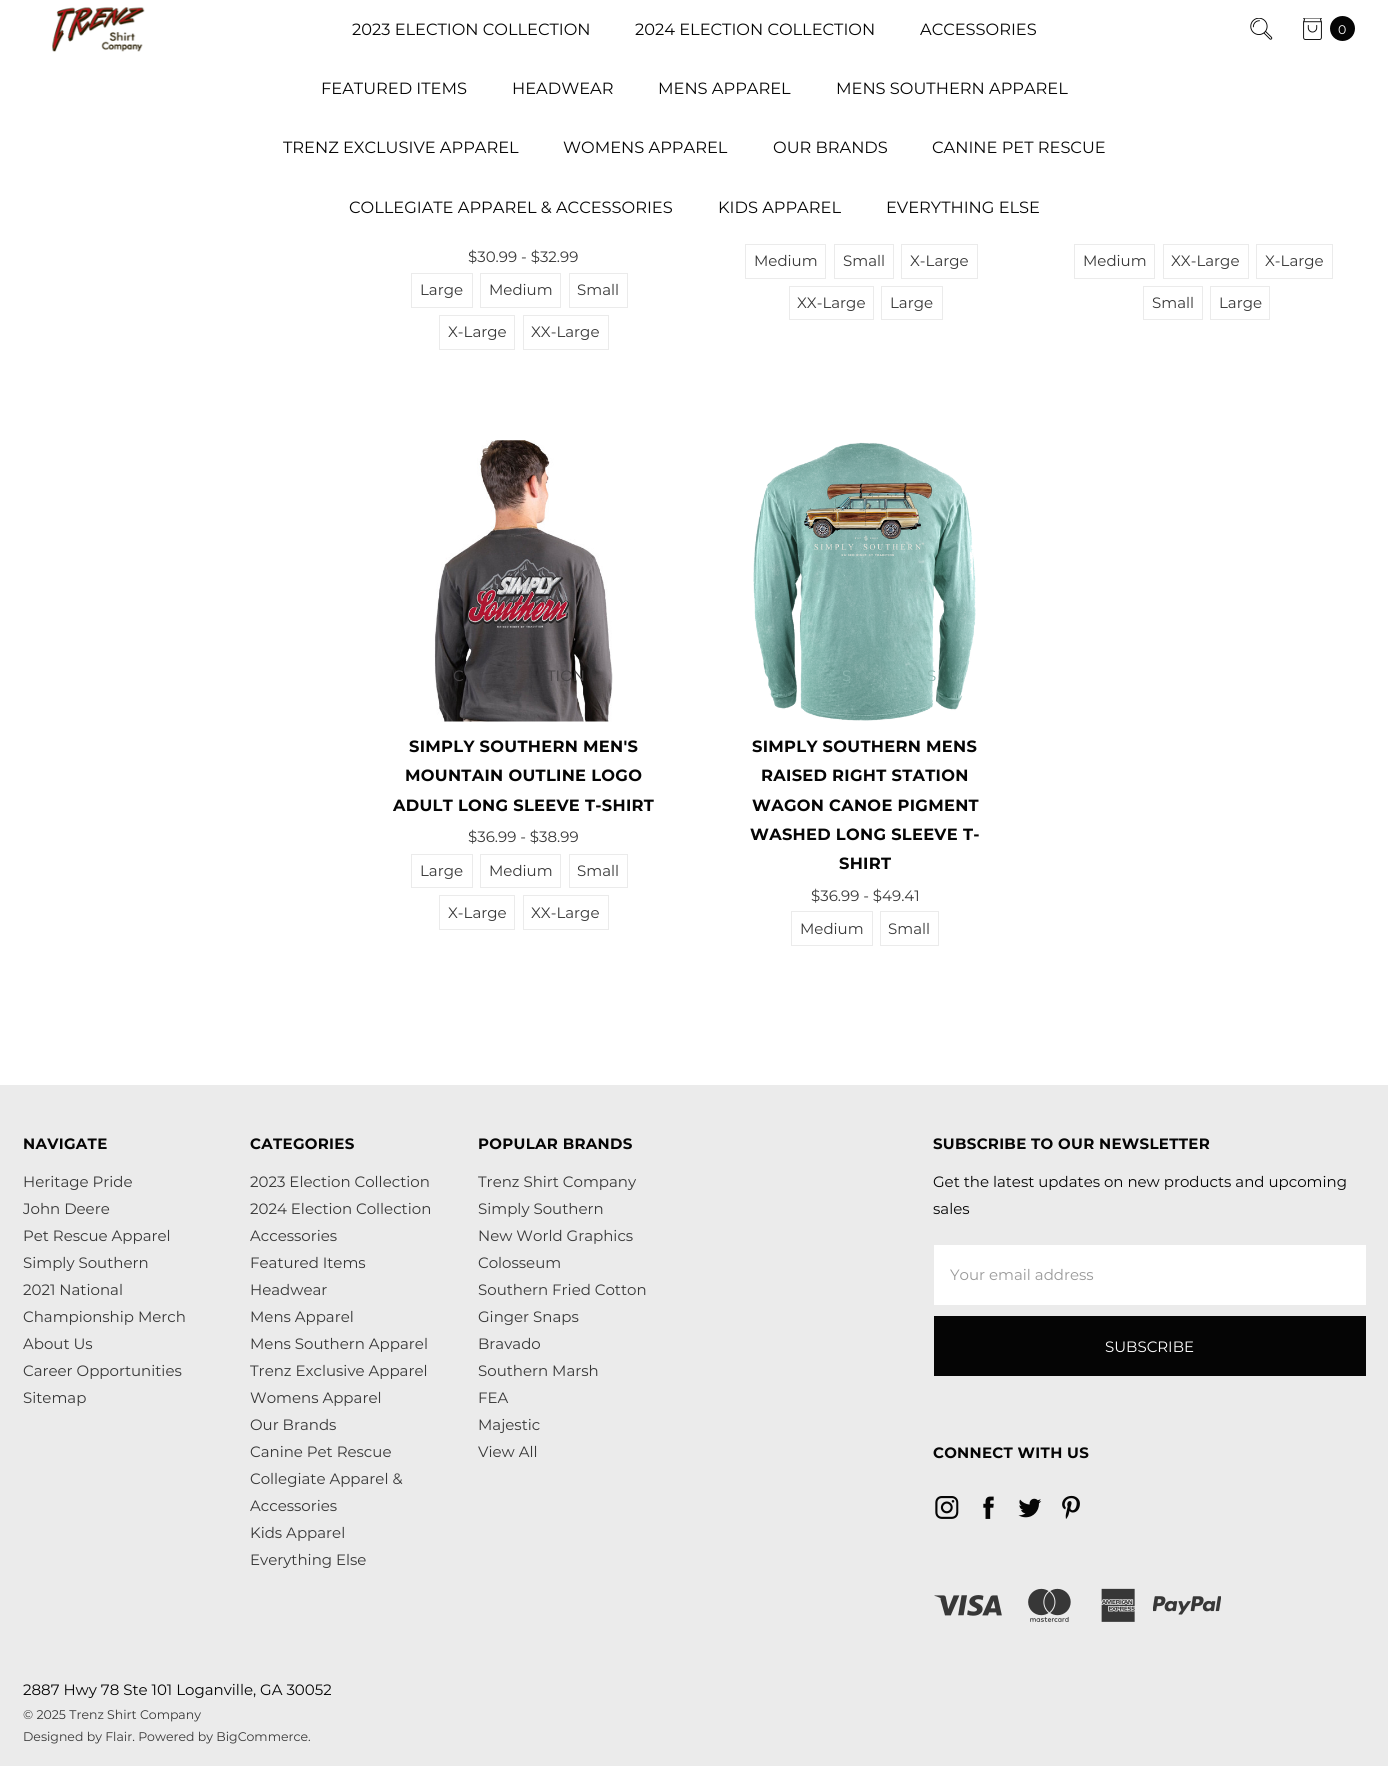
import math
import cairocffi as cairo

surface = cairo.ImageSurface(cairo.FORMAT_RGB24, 1388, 1766)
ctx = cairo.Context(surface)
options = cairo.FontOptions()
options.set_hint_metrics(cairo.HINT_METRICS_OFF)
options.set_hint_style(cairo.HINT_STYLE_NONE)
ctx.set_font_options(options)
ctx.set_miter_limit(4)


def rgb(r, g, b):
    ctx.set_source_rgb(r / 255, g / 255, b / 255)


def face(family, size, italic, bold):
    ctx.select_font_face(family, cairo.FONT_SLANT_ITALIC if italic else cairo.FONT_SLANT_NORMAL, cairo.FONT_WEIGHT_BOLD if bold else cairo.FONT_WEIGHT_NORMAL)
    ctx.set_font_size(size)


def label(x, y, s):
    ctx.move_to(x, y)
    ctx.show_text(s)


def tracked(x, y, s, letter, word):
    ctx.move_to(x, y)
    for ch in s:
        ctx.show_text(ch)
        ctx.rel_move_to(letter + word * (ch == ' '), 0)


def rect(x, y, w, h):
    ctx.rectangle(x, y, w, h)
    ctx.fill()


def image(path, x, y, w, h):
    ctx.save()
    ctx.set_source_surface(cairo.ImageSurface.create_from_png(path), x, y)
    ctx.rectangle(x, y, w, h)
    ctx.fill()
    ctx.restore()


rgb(255, 255, 255)
ctx.paint()
face('Montserrat', 16.25, 0, 0)
rgb(5, 5, 5)
label(352, 35, '2023 ELECTION COLLECTION')
label(635, 35, '2024 ELECTION COLLECTION')
label(920, 35, 'ACCESSORIES')
label(321, 94, 'FEATURED ITEMS')
label(512, 94, 'HEADWEAR')
label(658, 94, 'MENS APPAREL')
label(836, 94, 'MENS SOUTHERN APPAREL')
label(283, 153, 'TRENZ EXCLUSIVE APPAREL')
label(563, 153, 'WOMENS APPAREL')
label(773, 153, 'OUR BRANDS')
label(932, 153, 'CANINE PET RESCUE')
label(349, 213, 'COLLEGIATE APPAREL & ACCESSORIES')
label(718, 213, 'KIDS APPAREL')
label(886, 213, 'EVERYTHING ELSE')
image('image0.png', 52, 7, 93, 45)
image('image1.png', 1250, 18, 23, 22)
image('image2.png', 1303, 18, 19, 22)
ctx.arc(1342.5, 28.5, 12.5, 0, 2 * math.pi)
ctx.fill()
face('Montserrat', 12.5, 0, 0)
rgb(255, 255, 255)
label(1338, 34, '0')
face('Montserrat', 15, 0, 0)
rgb(55, 55, 55)
label(468, 262, '$30.99 - $32.99')
ctx.rectangle(411.5, 273.5, 61, 34)
rgb(235, 235, 235)
ctx.set_line_width(1)
ctx.stroke()
rgb(55, 55, 55)
label(420, 295, 'Large')
ctx.rectangle(480.5, 273.5, 80, 34)
rgb(235, 235, 235)
ctx.stroke()
rgb(55, 55, 55)
label(489, 295, 'Medium')
ctx.rectangle(569.5, 273.5, 58, 34)
rgb(235, 235, 235)
ctx.stroke()
rgb(55, 55, 55)
label(577, 295, 'Small')
ctx.rectangle(439.5, 315.5, 75, 34)
rgb(235, 235, 235)
ctx.stroke()
rgb(55, 55, 55)
label(448, 337, 'X-Large')
ctx.rectangle(523.5, 315.5, 85, 34)
rgb(235, 235, 235)
ctx.stroke()
rgb(55, 55, 55)
label(531, 337, 'XX-Large')
ctx.rectangle(745.5, 244.5, 80, 34)
rgb(235, 235, 235)
ctx.stroke()
rgb(55, 55, 55)
label(754, 266, 'Medium')
ctx.rectangle(834.5, 244.5, 59, 34)
rgb(235, 235, 235)
ctx.stroke()
rgb(55, 55, 55)
label(843, 266, 'Small')
ctx.rectangle(901.5, 244.5, 76, 34)
rgb(235, 235, 235)
ctx.stroke()
rgb(55, 55, 55)
label(910, 266, 'X-Large')
ctx.rectangle(789.5, 286.5, 84, 33)
rgb(235, 235, 235)
ctx.stroke()
rgb(55, 55, 55)
label(797, 308, 'XX-Large')
ctx.rectangle(881.5, 286.5, 61, 33)
rgb(235, 235, 235)
ctx.stroke()
rgb(55, 55, 55)
label(890, 308, 'Large')
ctx.rectangle(1074.5, 244.5, 80, 34)
rgb(235, 235, 235)
ctx.stroke()
rgb(55, 55, 55)
label(1083, 266, 'Medium')
ctx.rectangle(1163.5, 244.5, 85, 34)
rgb(235, 235, 235)
ctx.stroke()
rgb(55, 55, 55)
label(1171, 266, 'XX-Large')
ctx.rectangle(1256.5, 244.5, 76, 34)
rgb(235, 235, 235)
ctx.stroke()
rgb(55, 55, 55)
label(1265, 266, 'X-Large')
ctx.rectangle(1143.5, 286.5, 59, 33)
rgb(235, 235, 235)
ctx.stroke()
rgb(55, 55, 55)
label(1152, 308, 'Small')
ctx.rectangle(1210.5, 286.5, 59, 33)
rgb(235, 235, 235)
ctx.stroke()
rgb(55, 55, 55)
label(1219, 308, 'Large')
image('image3.png', 434, 440, 179, 282)
rgb(71, 68, 70)
label(453, 681, 'C')
label(547, 681, 'TION')
face('Montserrat', 16.25, 0, 1)
rgb(5, 5, 5)
tracked(409, 752, 'SIMPLY SOUTHERN MEN\'S', 0.3, 0)
tracked(405, 781, 'MOUNTAIN OUTLINE LOGO', 0.3, 0)
tracked(393, 811, 'ADULT LONG SLEEVE T-SHIRT', 0.3, 0)
face('Montserrat', 15, 0, 0)
rgb(55, 55, 55)
label(468, 842, '$36.99 - $38.99')
ctx.rectangle(411.5, 854.5, 61, 33)
rgb(235, 235, 235)
ctx.stroke()
rgb(55, 55, 55)
label(420, 876, 'Large')
ctx.rectangle(480.5, 854.5, 80, 33)
rgb(235, 235, 235)
ctx.stroke()
rgb(55, 55, 55)
label(489, 876, 'Medium')
ctx.rectangle(569.5, 854.5, 58, 33)
rgb(235, 235, 235)
ctx.stroke()
rgb(55, 55, 55)
label(577, 876, 'Small')
ctx.rectangle(439.5, 895.5, 75, 34)
rgb(235, 235, 235)
ctx.stroke()
rgb(55, 55, 55)
label(448, 918, 'X-Large')
ctx.rectangle(523.5, 895.5, 85, 34)
rgb(235, 235, 235)
ctx.stroke()
rgb(55, 55, 55)
label(531, 918, 'XX-Large')
image('image4.png', 753, 442, 223, 279)
rgb(141, 183, 177)
label(842, 681, 'S')
label(927, 681, 'S')
face('Montserrat', 16.25, 0, 1)
rgb(5, 5, 5)
tracked(752, 752, 'SIMPLY SOUTHERN MENS', 0.3, 0)
tracked(761, 781, 'RAISED RIGHT STATION', 0.3, 0)
tracked(752, 811, 'WAGON CANOE PIGMENT', 0.3, 0)
tracked(750, 840, 'WASHED LONG SLEEVE T-', 0.3, 0)
tracked(839, 869, 'SHIRT', 0.3, 0)
face('Montserrat', 15, 0, 0)
rgb(55, 55, 55)
label(811, 901, '$36.99 - $49.41')
ctx.rectangle(791.5, 911.5, 81, 34)
rgb(235, 235, 235)
ctx.stroke()
rgb(55, 55, 55)
label(800, 934, 'Medium')
ctx.rectangle(880.5, 911.5, 58, 34)
rgb(235, 235, 235)
ctx.stroke()
rgb(55, 55, 55)
label(888, 934, 'Small')
rgb(235, 235, 235)
rect(0, 1085, 1388, 681)
face('Montserrat', 15, 0, 1)
rgb(5, 5, 5)
tracked(23, 1149, 'NAVIGATE', 0.3, 0)
face('Montserrat', 15, 0, 0)
rgb(55, 55, 55)
label(23, 1187, 'Heritage Pride')
label(23, 1214, 'John Deere')
label(23, 1241, 'Pet Rescue Apparel')
label(23, 1268, 'Simply Southern')
label(23, 1295, '2021 National')
label(23, 1322, 'Championship Merch')
label(23, 1349, 'About Us')
label(23, 1376, 'Career Opportunities')
label(23, 1403, 'Sitemap')
face('Montserrat', 15, 0, 1)
rgb(5, 5, 5)
tracked(250, 1149, 'CATEGORIES', 0.3, 0)
face('Montserrat', 15, 0, 0)
rgb(55, 55, 55)
label(250, 1187, '2023 Election Collection')
label(250, 1214, '2024 Election Collection')
label(250, 1241, 'Accessories')
label(250, 1268, 'Featured Items')
label(250, 1295, 'Headwear')
label(250, 1322, 'Mens Apparel')
label(250, 1349, 'Mens Southern Apparel')
label(250, 1376, 'Trenz Exclusive Apparel')
label(250, 1403, 'Womens Apparel')
label(250, 1430, 'Our Brands')
label(250, 1457, 'Canine Pet Rescue')
label(250, 1484, 'Collegiate Apparel &')
label(250, 1511, 'Accessories')
label(250, 1538, 'Kids Apparel')
label(250, 1565, 'Everything Else')
face('Montserrat', 15, 0, 1)
rgb(5, 5, 5)
tracked(478, 1149, 'POPULAR BRANDS', 0.3, 0)
face('Montserrat', 15, 0, 0)
rgb(55, 55, 55)
label(478, 1187, 'Trenz Shirt Company')
label(478, 1214, 'Simply Southern')
label(478, 1241, 'New World Graphics')
label(478, 1268, 'Colosseum')
label(478, 1295, 'Southern Fried Cotton')
label(478, 1322, 'Ginger Snaps')
label(478, 1349, 'Bravado')
label(478, 1376, 'Southern Marsh')
label(478, 1403, 'FEA')
label(478, 1430, 'Majestic')
label(478, 1457, 'View All')
face('Montserrat', 15, 0, 1)
rgb(5, 5, 5)
tracked(933, 1149, 'SUBSCRIBE TO OUR NEWSLETTER', 0.3, 0)
face('Montserrat', 15, 0, 0)
label(933, 1187, 'Get the latest updates on new products and upcoming')
label(933, 1214, 'sales')
rgb(255, 255, 255)
rect(934, 1245, 432, 60)
rgb(153, 153, 153)
label(950, 1280, 'Your email address')
rgb(5, 5, 5)
rect(934, 1316, 432, 60)
rgb(255, 255, 255)
label(1105, 1352, 'SUBSCRIBE')
face('Montserrat', 15, 0, 1)
rgb(5, 5, 5)
tracked(933, 1458, 'CONNECT WITH US', 0.3, 0)
image('image5.png', 935, 1496, 24, 23)
image('image6.png', 983, 1496, 11, 23)
image('image7.png', 1018, 1498, 24, 20)
image('image8.png', 1062, 1495, 18, 24)
image('image9.png', 934, 1595, 68, 21)
image('image10.png', 1028, 1588, 43, 34)
image('image11.png', 1101, 1588, 34, 34)
image('image12.png', 1153, 1596, 68, 19)
face('Montserrat', 15, 0, 0)
label(23, 1695, '2887 Hwy 78 Ste 101 Loganville, GA 30052')
face('Montserrat', 12.5, 0, 0)
rgb(55, 55, 55)
label(23, 1719, '© 2025 Trenz Shirt Company')
label(23, 1741, 'Designed by Flair. Powered by BigCommerce.')
surface.write_to_png('render.png')
